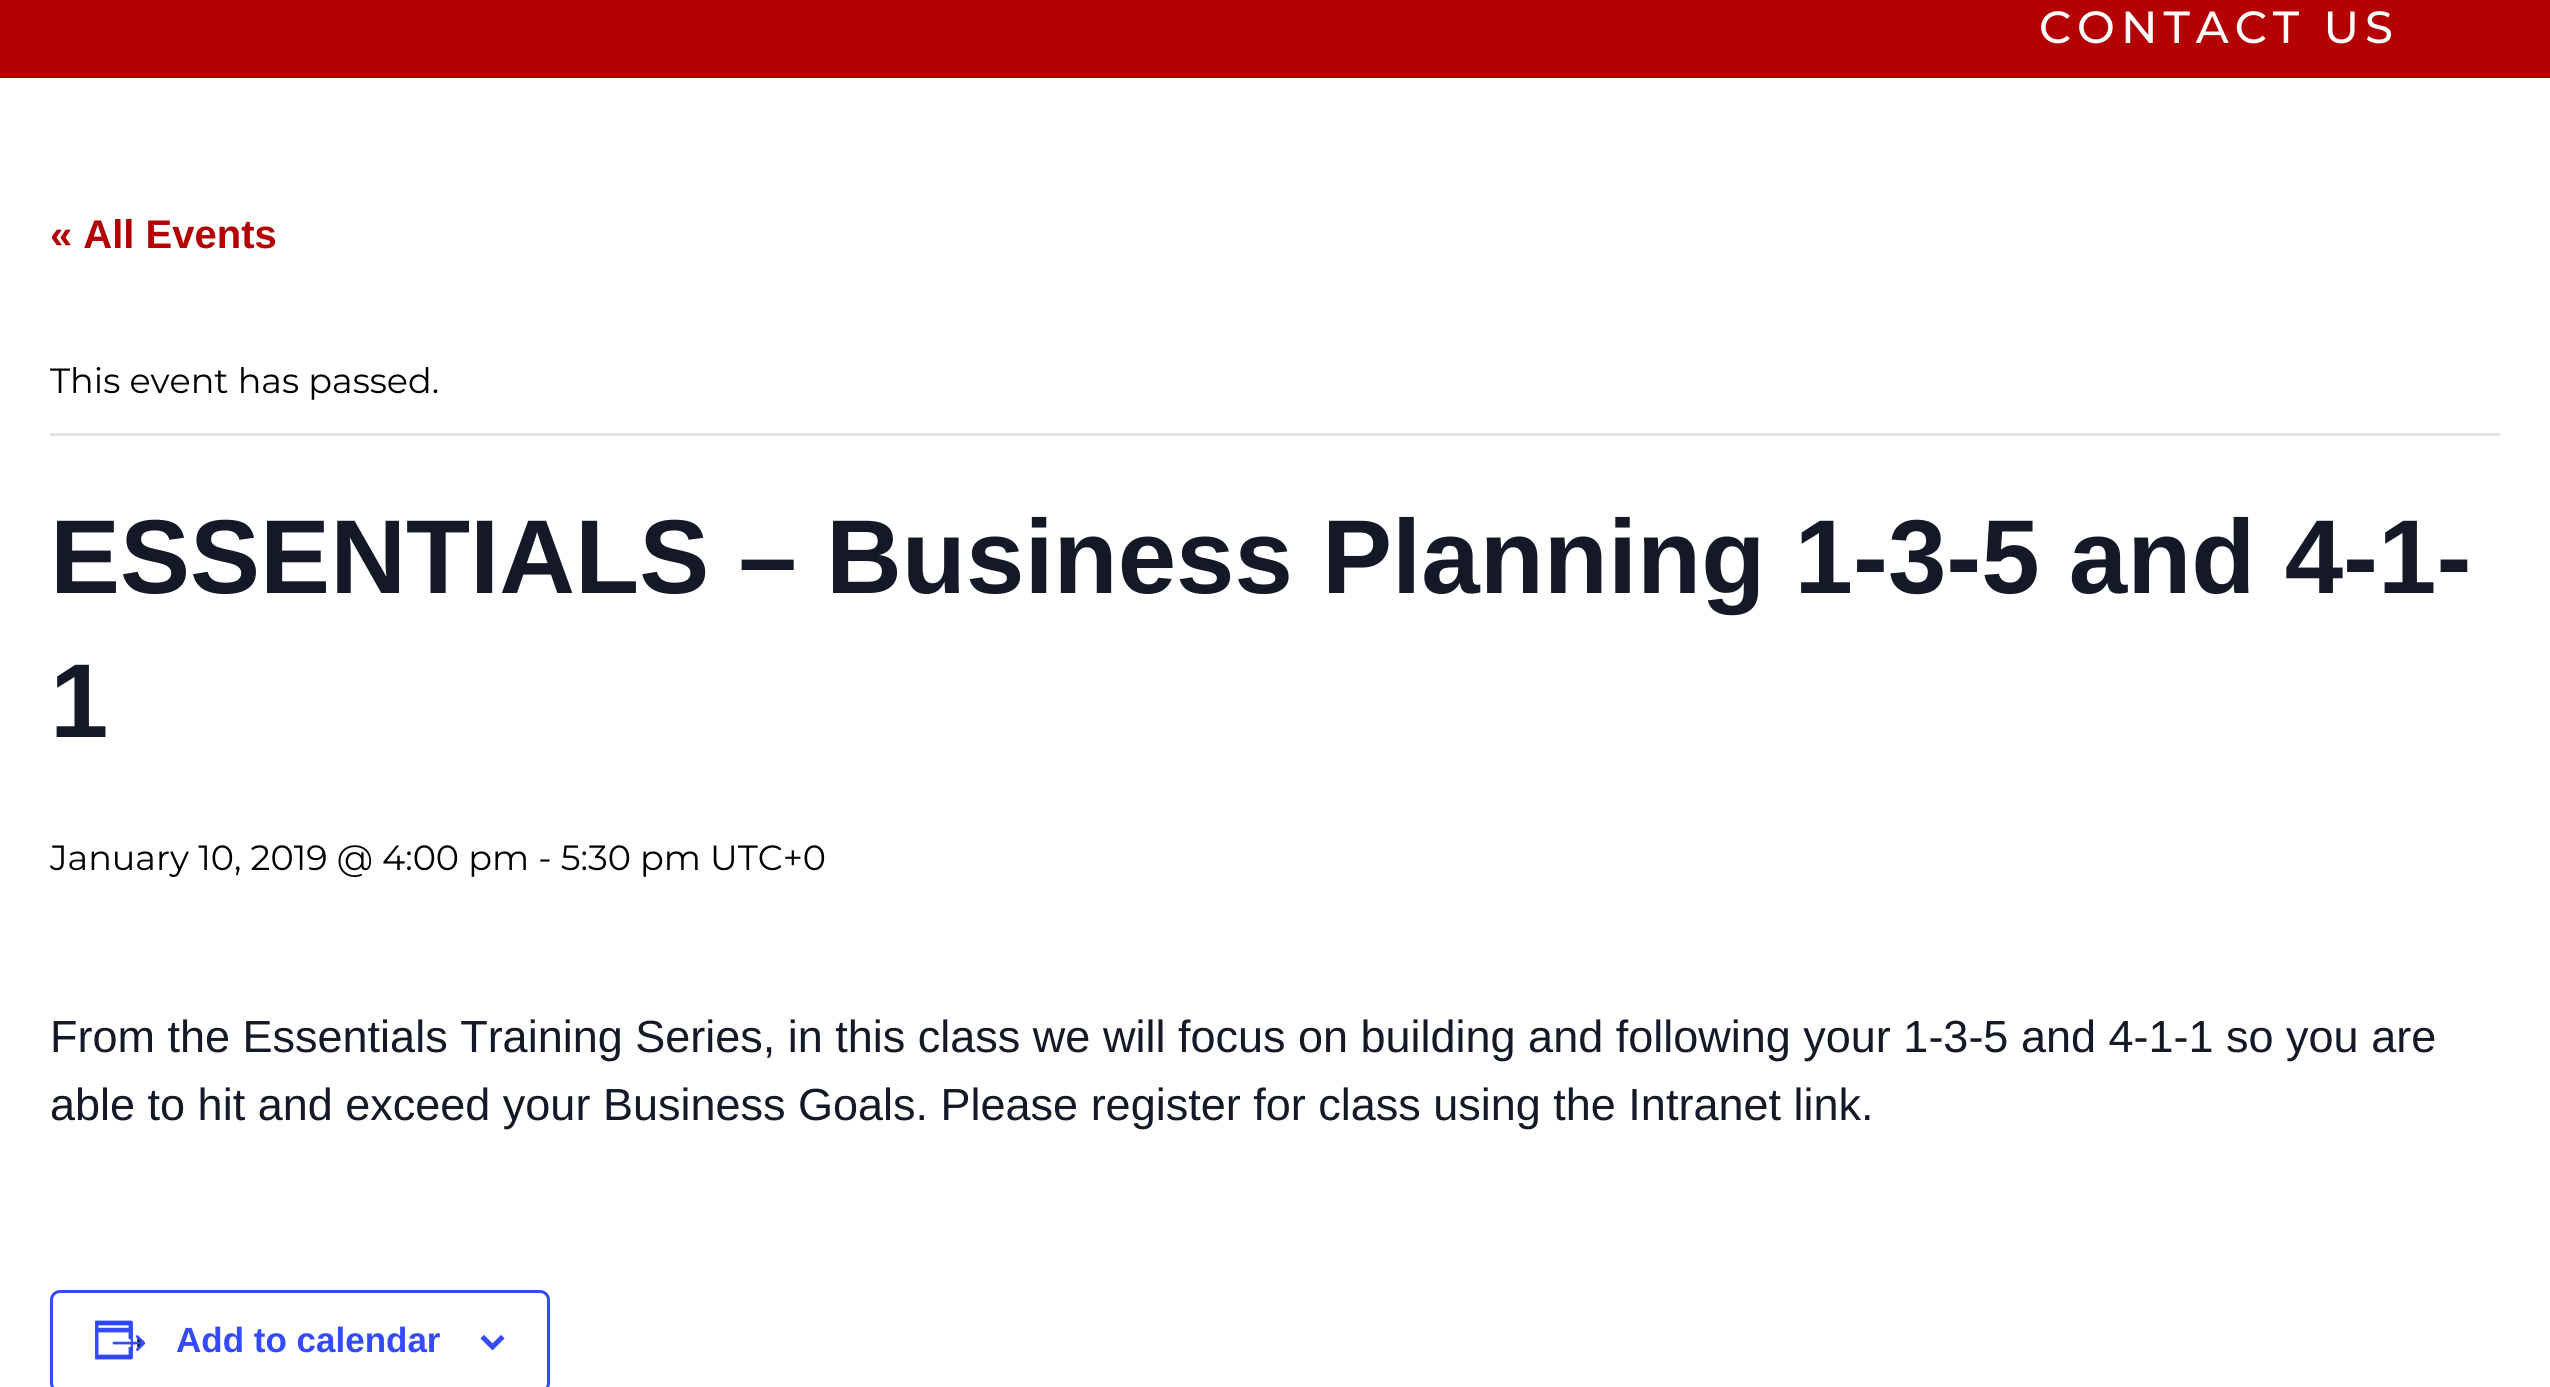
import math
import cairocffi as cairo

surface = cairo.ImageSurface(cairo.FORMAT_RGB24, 2550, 1387)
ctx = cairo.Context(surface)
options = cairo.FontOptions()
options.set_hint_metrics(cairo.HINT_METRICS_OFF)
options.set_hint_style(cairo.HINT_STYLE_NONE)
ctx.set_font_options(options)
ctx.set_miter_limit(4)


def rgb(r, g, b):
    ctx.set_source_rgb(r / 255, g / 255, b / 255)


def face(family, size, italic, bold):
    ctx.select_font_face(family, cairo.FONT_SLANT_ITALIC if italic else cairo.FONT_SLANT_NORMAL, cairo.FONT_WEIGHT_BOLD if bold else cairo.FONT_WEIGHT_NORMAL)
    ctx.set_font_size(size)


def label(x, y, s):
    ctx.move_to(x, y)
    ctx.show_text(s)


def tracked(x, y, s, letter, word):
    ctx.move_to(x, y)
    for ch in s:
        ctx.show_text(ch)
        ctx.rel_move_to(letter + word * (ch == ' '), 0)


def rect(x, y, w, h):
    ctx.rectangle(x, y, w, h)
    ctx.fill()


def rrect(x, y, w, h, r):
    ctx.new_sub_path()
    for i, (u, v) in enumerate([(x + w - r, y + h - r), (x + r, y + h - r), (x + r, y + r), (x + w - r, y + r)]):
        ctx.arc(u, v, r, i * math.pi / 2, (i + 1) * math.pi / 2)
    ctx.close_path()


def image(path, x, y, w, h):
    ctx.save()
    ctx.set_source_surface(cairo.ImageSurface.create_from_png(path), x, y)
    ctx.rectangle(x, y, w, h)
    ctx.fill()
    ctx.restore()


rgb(255, 255, 255)
ctx.paint()
rgb(180, 1, 1)
rect(0, 0, 2550, 78)
face('Montserrat Medium', 45, 0, 0)
rgb(255, 255, 255)
tracked(2039, 43, 'CONTACT US', 6, 0)
face('Liberation Sans', 40, 0, 1)
rgb(180, 1, 1)
label(50, 248, '« All Events')
rgb(228, 228, 228)
rect(50, 433, 2450, 3)
face('Montserrat', 35, 0, 0)
rgb(0, 0, 0)
label(50, 393, 'This event has passed.')
face('Liberation Sans', 105, 0, 1)
rgb(20, 24, 39)
label(50, 593, 'ESSENTIALS – Business Planning 1-3-5 and 4-1-')
label(50, 737, '1')
face('Montserrat', 35, 0, 0)
rgb(0, 0, 0)
label(50, 870, 'January 10, 2019 @ 4:00 pm - 5:30 pm UTC+0')
face('Liberation Sans', 45, 0, 0)
rgb(20, 24, 39)
label(50, 1052, 'From the Essentials Training Series, in this class we will focus on building and following your 1-3-5 and 4-1-1 so you are')
label(50, 1120, 'able to hit and exceed your Business Goals. Please register for class using the Intranet link.')
rrect(51.5, 1291.5, 497, 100, 8.5)
rgb(51, 74, 255)
ctx.set_line_width(3)
ctx.stroke()
image('image0.png', 95, 1320, 51, 40)
face('Liberation Sans', 35, 0, 1)
label(176, 1352, 'Add to calendar')
image('image1.png', 480, 1335, 25, 15)
surface.write_to_png('render.png')
